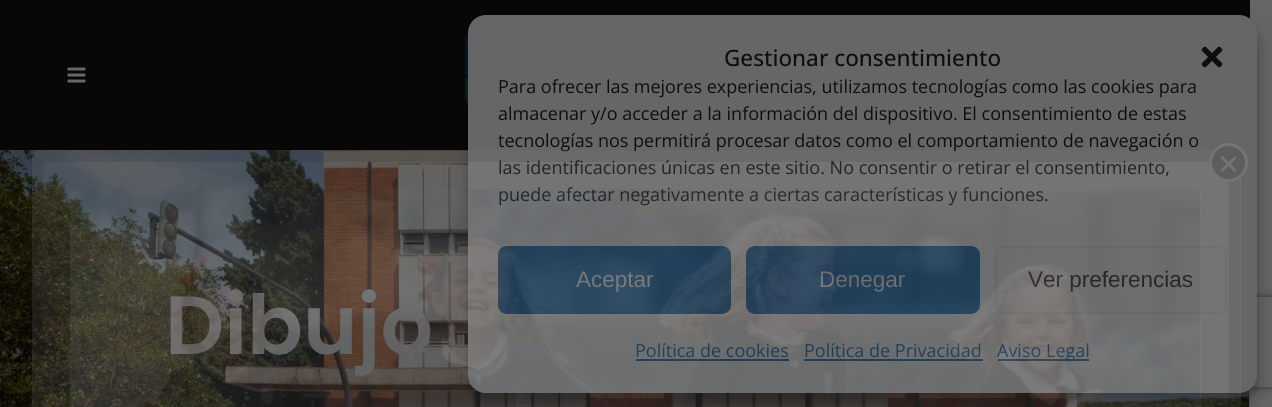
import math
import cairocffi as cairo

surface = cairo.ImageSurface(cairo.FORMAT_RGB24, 1272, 407)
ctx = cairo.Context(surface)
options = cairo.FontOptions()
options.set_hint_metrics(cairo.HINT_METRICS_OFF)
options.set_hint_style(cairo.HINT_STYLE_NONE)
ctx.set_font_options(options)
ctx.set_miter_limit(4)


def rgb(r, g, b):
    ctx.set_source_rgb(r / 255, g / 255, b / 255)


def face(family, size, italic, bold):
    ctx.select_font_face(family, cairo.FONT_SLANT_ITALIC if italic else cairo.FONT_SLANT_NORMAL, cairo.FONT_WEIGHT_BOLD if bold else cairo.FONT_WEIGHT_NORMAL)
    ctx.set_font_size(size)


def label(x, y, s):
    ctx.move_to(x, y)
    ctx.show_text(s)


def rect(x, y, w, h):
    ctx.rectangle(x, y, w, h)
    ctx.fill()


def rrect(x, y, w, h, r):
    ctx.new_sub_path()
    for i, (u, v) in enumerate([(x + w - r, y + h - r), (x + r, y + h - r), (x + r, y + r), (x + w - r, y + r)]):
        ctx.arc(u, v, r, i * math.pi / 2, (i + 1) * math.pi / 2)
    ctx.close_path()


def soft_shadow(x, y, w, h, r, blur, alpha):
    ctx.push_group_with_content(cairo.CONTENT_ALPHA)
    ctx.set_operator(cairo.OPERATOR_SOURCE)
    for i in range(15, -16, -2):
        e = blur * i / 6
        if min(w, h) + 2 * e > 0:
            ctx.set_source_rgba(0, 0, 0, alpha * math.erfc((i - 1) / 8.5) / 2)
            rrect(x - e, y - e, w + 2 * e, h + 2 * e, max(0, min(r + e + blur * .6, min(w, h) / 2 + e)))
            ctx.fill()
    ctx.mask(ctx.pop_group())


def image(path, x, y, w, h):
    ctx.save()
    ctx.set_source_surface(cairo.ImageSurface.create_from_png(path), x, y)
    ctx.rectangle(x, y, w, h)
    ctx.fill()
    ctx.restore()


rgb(102, 102, 102)
ctx.paint()
rgb(9, 6, 6)
rect(0, 0, 1250, 150)
image('image3.png', 464, 34, 4, 75)
ctx.save()
ctx.set_fill_rule(cairo.FILL_RULE_EVEN_ODD)
ctx.new_path()
ctx.move_to(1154, 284)
ctx.line_to(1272, 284)
ctx.line_to(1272, 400)
ctx.line_to(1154, 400)
ctx.close_path()
ctx.move_to(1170, 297)
ctx.line_to(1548, 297)
ctx.curve_to(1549.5, 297, 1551, 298.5, 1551, 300)
ctx.line_to(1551, 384)
ctx.curve_to(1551, 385.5, 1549.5, 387, 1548, 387)
ctx.line_to(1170, 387)
ctx.curve_to(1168.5, 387, 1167, 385.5, 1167, 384)
ctx.line_to(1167, 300)
ctx.curve_to(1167, 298.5, 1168.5, 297, 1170, 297)
ctx.close_path()
ctx.clip()
rgb(51, 51, 51)
soft_shadow(1167, 297, 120, 90, 3, 4, 1)
ctx.restore()
image('image4.png', 0, 150, 1250, 257)
rgb(0, 0, 0)
soft_shadow(468, 24, 789, 378, 18, 4.5, 0.23)
soft_shadow(468, 30, 789, 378, 18, 15, 0.19)
rgb(102, 102, 102)
rrect(468, 15, 789, 378, 18)
ctx.fill()
face('Open Sans Medium', 22.5, 0, 0)
rgb(14, 14, 14)
label(724, 66, 'Gestionar consentimiento')
image('image0.png', 1201, 46, 22, 22)
face('Open Sans', 18, 0, 0)
label(498, 93, 'Para ofrecer las mejores experiencias, utilizamos tecnologías como las cookies para')
label(498, 120, 'almacenar y/o acceder a la información del dispositivo. El consentimiento de estas')
label(498, 147, 'tecnologías nos permitirá procesar datos como el comportamiento de navegación o')
label(498, 174, 'las identificaciones únicas en este sitio. No consentir o retirar el consentimiento,')
label(498, 201, 'puede afectar negativamente a ciertas características y funciones.')
rgb(12, 46, 76)
rrect(499, 247, 231, 66, 8)
ctx.fill_preserve()
ctx.stroke()
face('Liberation Sans', 22.5, 0, 0)
rgb(102, 102, 102)
label(576, 287, 'Aceptar')
rgb(12, 46, 76)
rrect(747, 247, 232, 66, 8)
ctx.fill_preserve()
ctx.stroke()
rgb(102, 102, 102)
label(819, 287, 'Denegar')
rrect(996, 247, 230, 66, 8)
rgb(97, 97, 97)
ctx.stroke()
rgb(20, 20, 20)
label(1028, 287, 'Ver preferencias')
face('Open Sans', 18, 0, 0)
rgb(12, 46, 76)
label(635, 357, 'Política de cookies')
rect(636, 359, 153, 2)
label(804, 357, 'Política de Privacidad')
rect(804, 359, 179, 2)
rect(998, 359, 91, 2)
label(997, 357, 'Aviso Legal')
ctx.set_source_rgba(1, 1, 1, 0.09)
ctx.new_path()
ctx.move_to(37, 150)
ctx.line_to(1236, 150)
ctx.curve_to(1239, 150, 1241, 152, 1241, 155)
ctx.line_to(1241, 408)
ctx.line_to(32, 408)
ctx.line_to(32, 155)
ctx.curve_to(32, 152, 34, 150, 37, 150)
ctx.close_path()
ctx.fill()
ctx.new_path()
ctx.move_to(37.5, 156)
ctx.line_to(1234.5, 156)
ctx.line_to(1234.5, 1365)
ctx.line_to(37.5, 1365)
ctx.close_path()
ctx.set_source_rgba(0, 0, 0, 0.09)
ctx.set_line_width(12)
ctx.stroke()
rgb(93, 93, 93)
ctx.arc(1228.5, 162.5, 18, 0, 2 * math.pi)
ctx.fill_preserve()
rgb(116, 116, 116)
ctx.set_line_width(3)
ctx.stroke()
face('Liberation Sans', 36, 0, 0)
label(1218, 176, '×')
face('Poppins SemiBold', 82.5, 0, 0)
rgb(102, 102, 102)
label(165, 354, 'Dibujo')
image('image1.png', 70, 189, 1131, 218)
image('image2.png', 67, 67, 19, 16)
surface.write_to_png('render.png')
